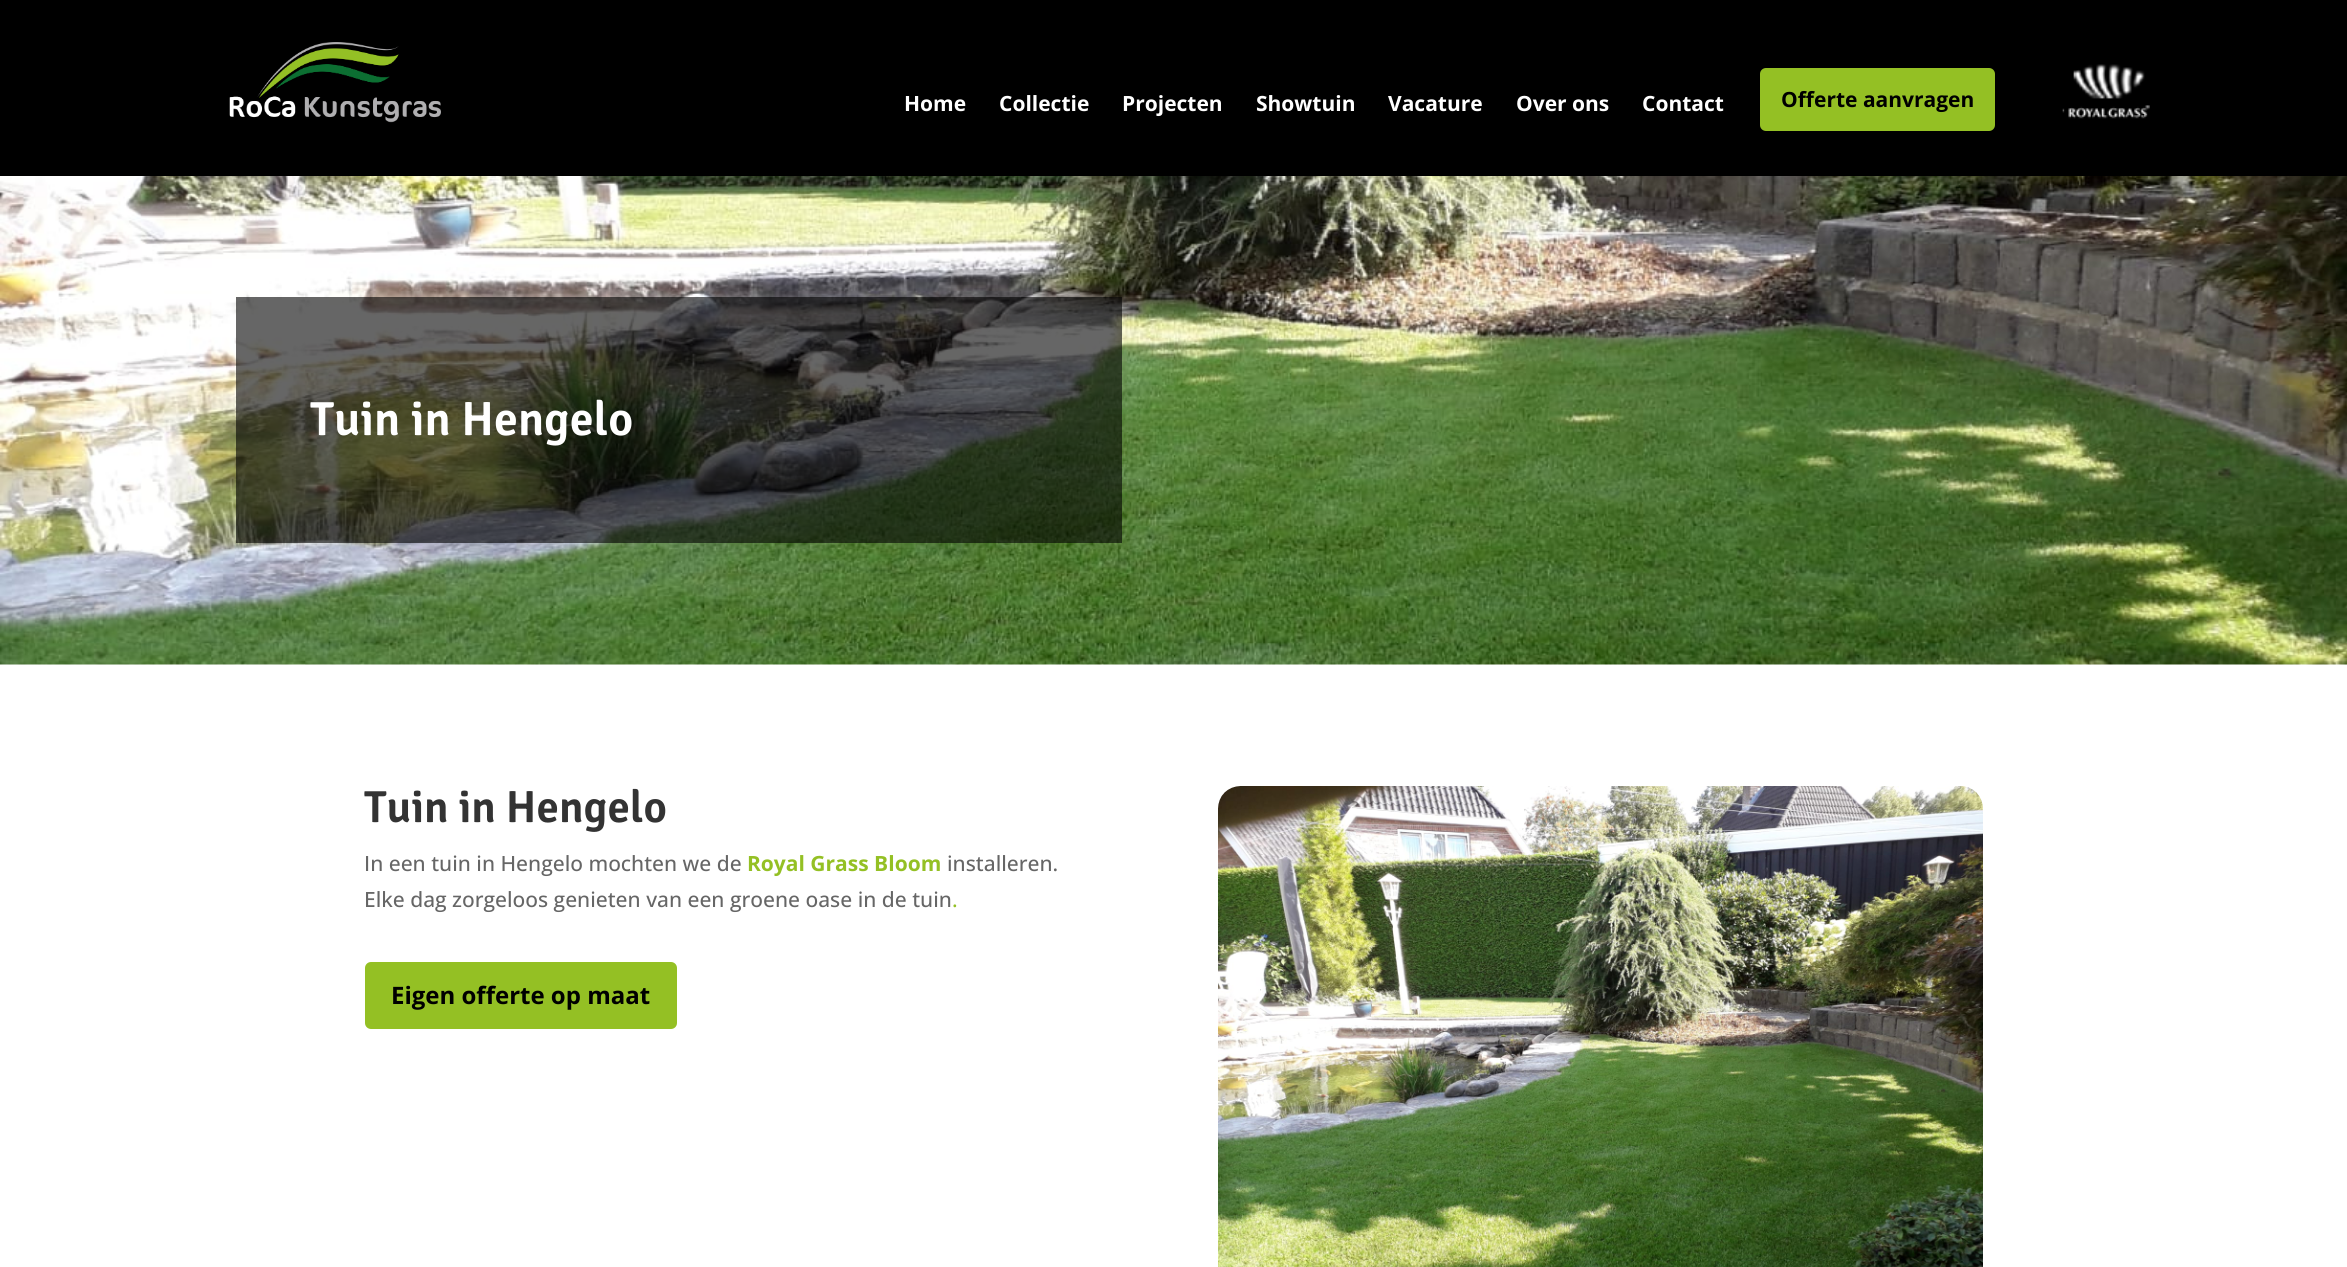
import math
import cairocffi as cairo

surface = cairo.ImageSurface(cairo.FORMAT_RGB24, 2347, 1267)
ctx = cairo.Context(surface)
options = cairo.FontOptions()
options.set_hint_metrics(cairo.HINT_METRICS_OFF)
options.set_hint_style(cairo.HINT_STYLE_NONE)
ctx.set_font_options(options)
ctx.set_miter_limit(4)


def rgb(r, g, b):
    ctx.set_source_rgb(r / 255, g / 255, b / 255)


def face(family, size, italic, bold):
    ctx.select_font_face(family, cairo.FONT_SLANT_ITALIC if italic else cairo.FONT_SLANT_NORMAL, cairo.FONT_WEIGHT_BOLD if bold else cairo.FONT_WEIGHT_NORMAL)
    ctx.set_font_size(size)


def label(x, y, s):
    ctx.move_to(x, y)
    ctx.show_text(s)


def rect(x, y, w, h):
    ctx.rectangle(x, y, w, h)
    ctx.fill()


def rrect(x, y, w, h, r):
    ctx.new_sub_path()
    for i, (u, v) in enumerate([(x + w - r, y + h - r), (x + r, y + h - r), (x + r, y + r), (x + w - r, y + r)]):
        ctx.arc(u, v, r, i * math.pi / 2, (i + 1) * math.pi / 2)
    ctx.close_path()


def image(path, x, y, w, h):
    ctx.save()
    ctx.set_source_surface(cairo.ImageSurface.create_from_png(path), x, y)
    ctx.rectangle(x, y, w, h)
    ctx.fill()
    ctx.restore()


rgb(255, 255, 255)
ctx.paint()
rgb(0, 0, 0)
rect(0, 0, 2347, 176)
image('image0.png', 229, 42, 212, 81)
face('Open Sans', 21, 0, 1)
rgb(255, 255, 255)
label(904, 111, 'Home')
label(999, 111, 'Collectie')
label(1122, 111, 'Projecten')
label(1256, 111, 'Showtuin')
label(1388, 111, 'Vacature')
label(1516, 111, 'Over ons')
label(1642, 111, 'Contact')
rgb(148, 192, 36)
rrect(1760, 68, 235, 63, 6)
ctx.fill()
rgb(0, 0, 0)
label(1781, 107, 'Offerte aanvragen')
image('image1.png', 2062, 64, 88, 55)
image('image2.png', 0, 176, 2347, 489)
ctx.set_source_rgba(0, 0, 0, 0.6)
rect(236, 297, 886, 246)
face('Signika SemiBold', 48, 0, 0)
rgb(255, 255, 255)
label(310, 435, 'Tuin in Hengelo')
face('Signika SemiBold', 45, 0, 0)
rgb(51, 51, 51)
label(364, 822, 'Tuin in Hengelo')
face('Open Sans Medium', 21, 0, 0)
rgb(102, 102, 102)
label(364, 871, 'In een tuin in Hengelo mochten we de')
face('Open Sans', 21, 0, 1)
rgb(148, 192, 36)
label(747, 871, 'Royal Grass Bloom')
face('Open Sans Medium', 21, 0, 0)
rgb(102, 102, 102)
label(947, 871, 'installeren.')
label(364, 907, 'Elke dag zorgeloos genieten van een groene oase in de tuin')
rgb(148, 192, 36)
label(952, 907, '.')
rrect(365, 962, 312, 67, 6)
ctx.fill()
face('Open Sans', 24, 0, 1)
rgb(0, 0, 0)
label(391, 1004, 'Eigen offerte op maat')
image('image3.png', 1218, 786, 765, 481)
surface.write_to_png('render.png')
